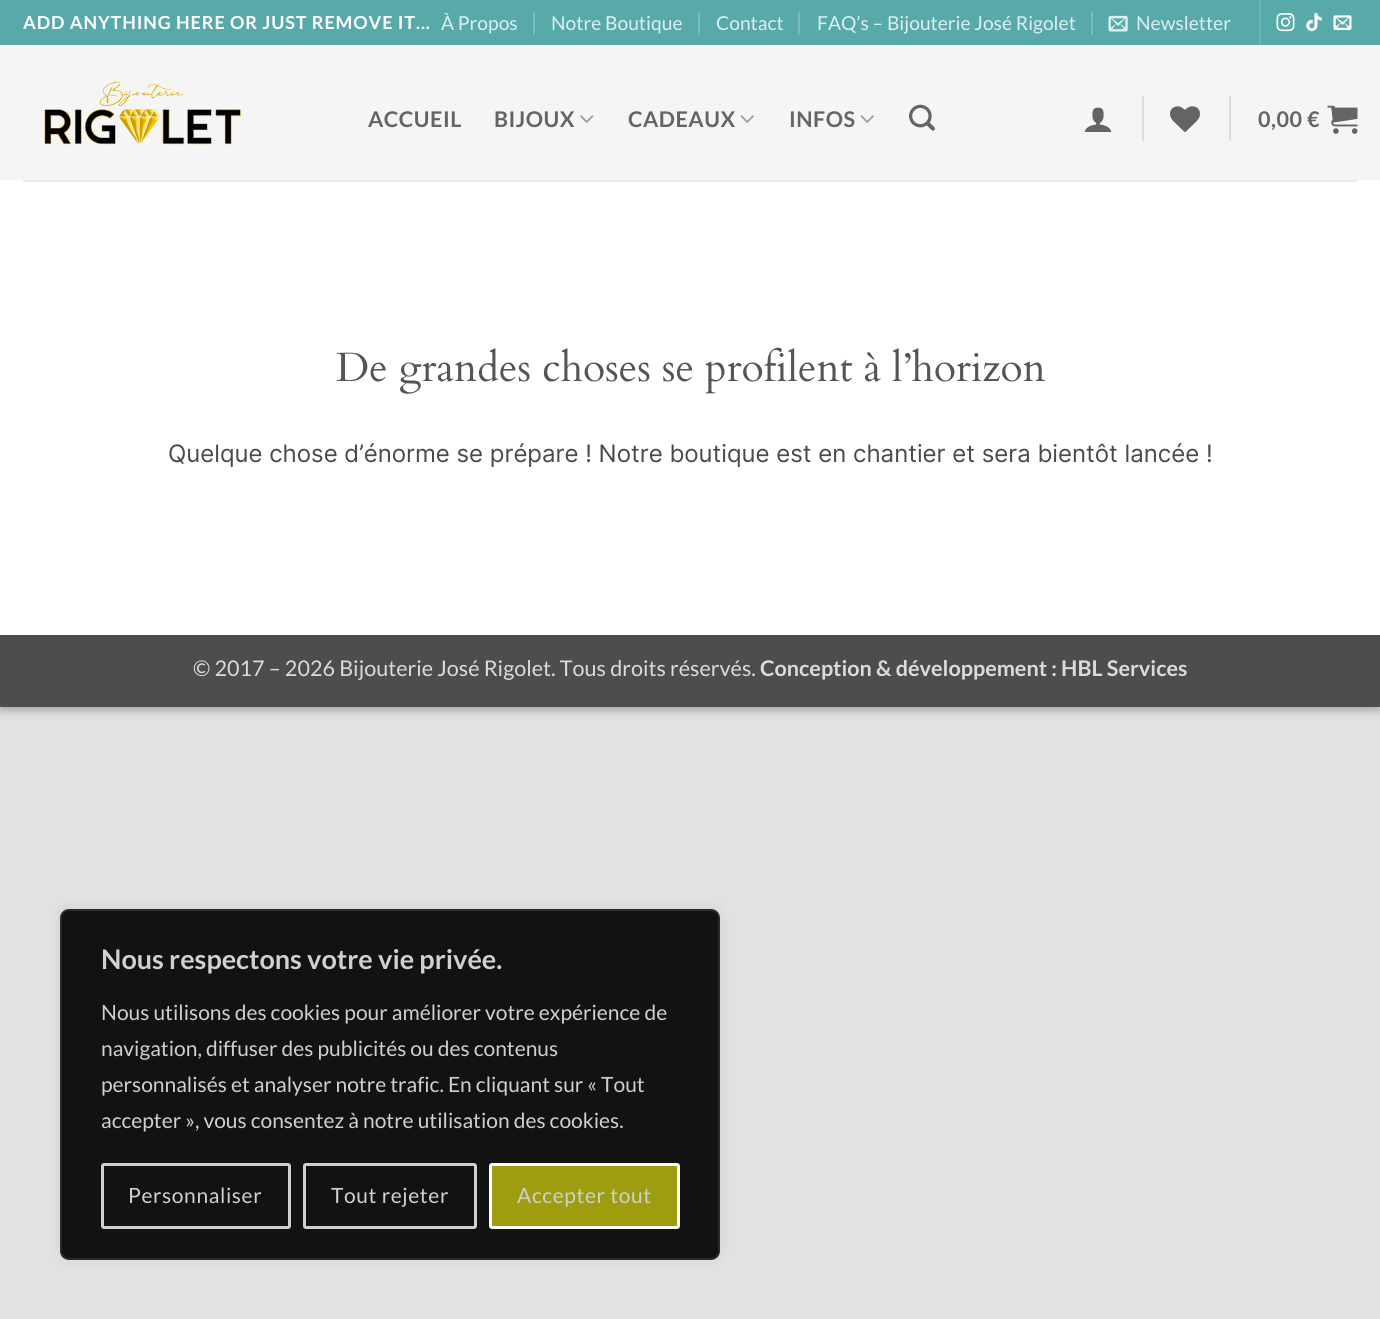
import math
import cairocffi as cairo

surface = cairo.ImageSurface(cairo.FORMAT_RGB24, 1380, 1319)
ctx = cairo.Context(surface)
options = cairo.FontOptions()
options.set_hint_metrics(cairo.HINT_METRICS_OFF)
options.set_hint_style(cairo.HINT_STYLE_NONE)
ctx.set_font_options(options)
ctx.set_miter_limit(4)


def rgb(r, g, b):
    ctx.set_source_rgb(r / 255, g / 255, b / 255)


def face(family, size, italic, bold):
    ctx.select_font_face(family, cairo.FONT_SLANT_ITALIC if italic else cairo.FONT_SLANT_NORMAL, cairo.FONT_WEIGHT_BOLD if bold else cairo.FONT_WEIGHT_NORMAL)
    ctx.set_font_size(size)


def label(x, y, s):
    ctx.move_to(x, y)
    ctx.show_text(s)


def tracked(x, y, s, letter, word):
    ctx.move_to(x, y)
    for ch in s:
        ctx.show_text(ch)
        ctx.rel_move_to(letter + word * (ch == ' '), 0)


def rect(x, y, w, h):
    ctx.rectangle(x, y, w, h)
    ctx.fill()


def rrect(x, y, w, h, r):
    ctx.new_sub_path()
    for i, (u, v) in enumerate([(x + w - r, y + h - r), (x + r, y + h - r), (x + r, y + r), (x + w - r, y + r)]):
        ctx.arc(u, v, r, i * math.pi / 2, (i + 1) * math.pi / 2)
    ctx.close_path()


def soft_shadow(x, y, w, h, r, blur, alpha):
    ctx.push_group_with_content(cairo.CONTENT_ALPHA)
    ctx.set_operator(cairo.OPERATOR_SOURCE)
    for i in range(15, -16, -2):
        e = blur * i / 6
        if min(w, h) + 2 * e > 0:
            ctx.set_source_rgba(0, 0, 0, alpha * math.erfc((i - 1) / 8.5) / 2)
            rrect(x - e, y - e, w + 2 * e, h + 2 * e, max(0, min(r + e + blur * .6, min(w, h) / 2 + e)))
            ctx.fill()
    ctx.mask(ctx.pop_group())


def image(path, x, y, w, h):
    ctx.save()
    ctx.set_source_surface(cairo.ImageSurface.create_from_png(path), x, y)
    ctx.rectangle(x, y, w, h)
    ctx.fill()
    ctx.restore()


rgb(226, 226, 226)
ctx.paint()
rgb(0, 0, 0)
soft_shadow(0, 5, 1380, 706, 0, 4.5, 0.23)
soft_shadow(6, 11, 1368, 694, 0, 4.5, 0.16)
rgb(255, 255, 255)
rect(0, 180, 1380, 455)
rgb(88, 170, 170)
rect(0, 0, 1380, 45)
face('Lato', 18, 0, 1)
rgb(255, 255, 255)
tracked(23, 29, 'ADD ANYTHING HERE OR JUST REMOVE IT...', 0.9, 0)
face('Lato', 19.25, 0, 0)
rgb(222, 238, 238)
label(441, 30, 'À Propos')
rgb(121, 187, 187)
rect(533, 12, 2, 23)
rgb(222, 238, 238)
label(551, 30, 'Notre Boutique')
rgb(121, 187, 187)
rect(698, 12, 2, 23)
rgb(222, 238, 238)
label(716, 30, 'Contact')
rgb(121, 187, 187)
rect(798, 12, 2, 23)
rgb(222, 238, 238)
label(817, 30, 'FAQ’s – Bijouterie José Rigolet')
rgb(121, 187, 187)
rect(1091, 12, 2, 23)
image('image0.png', 1108, 15, 20, 17)
rgb(222, 238, 238)
label(1136, 30, 'Newsletter')
rgb(105, 179, 179)
rect(1259, 0, 2, 45)
image('image1.png', 1276, 13, 19, 19)
image('image2.png', 1306, 13, 16, 19)
image('image3.png', 1333, 15, 19, 15)
rgb(245, 245, 245)
rect(0, 45, 1380, 135)
image('image4.png', 44, 81, 197, 64)
face('Lato', 21.6, 0, 1)
rgb(100, 100, 100)
tracked(368, 127, 'ACCUEIL', 0.5, 0)
tracked(494, 127, 'BIJOUX', 0.5, 0)
image('image5.png', 580, 115, 14, 8)
tracked(628, 127, 'CADEAUX', 0.5, 0)
image('image6.png', 740, 115, 14, 8)
tracked(789, 127, 'INFOS', 0.5, 0)
image('image6.png', 860, 115, 14, 8)
image('image7.png', 909, 104, 26, 27)
image('image8.png', 1084, 107, 28, 25)
rgb(221, 221, 221)
rect(1142, 96, 2, 45)
image('image9.png', 1170, 106, 30, 26)
rect(1229, 96, 2, 45)
rgb(100, 100, 100)
tracked(1258, 127, '0,00 €', 0.5, 0)
image('image10.png', 1327, 105, 31, 29)
rgb(237, 237, 237)
rect(23, 180, 1335, 2)
image('image11.png', 336, 347, 710, 47)
face('Inter', 24, 0, 0)
rgb(74, 74, 74)
label(168, 462, 'Quelque chose d’énorme se prépare ! Notre boutique est en chantier et sera bientôt lancée !')
rgb(77, 77, 77)
rect(0, 635, 1380, 72)
face('Lato', 21.6, 0, 0)
rgb(219, 219, 219)
label(193, 676, '© 2017 – 2026 Bijouterie José Rigolet. Tous droits réservés.')
face('Lato', 21.6, 0, 1)
label(760, 676, 'Conception & développement : HBL Services')
rgb(172, 171, 171)
soft_shadow(60, 908, 660, 351, 9, 7.5, 0.3)
rgb(18, 18, 18)
rrect(61, 910, 658, 349, 8)
ctx.fill_preserve()
rgb(42, 42, 42)
ctx.stroke()
face('Lato', 27, 0, 1)
rgb(208, 208, 208)
label(101, 969, 'Nous respectons votre vie privée.')
face('Lato', 21, 0, 0)
label(101, 1020, 'Nous utilisons des cookies pour améliorer votre expérience de')
label(101, 1056, 'navigation, diffuser des publicités ou des contenus')
label(101, 1092, 'personnalisés et analyser notre trafic. En cliquant sur « Tout')
label(101, 1128, 'accepter », vous consentez à notre utilisation des cookies.')
rrect(102.5, 1164.5, 187, 63, 1.5)
ctx.set_line_width(3)
ctx.stroke()
tracked(128, 1203, 'Personnaliser', 0.6, 0)
rrect(304.5, 1164.5, 171, 63, 1.5)
ctx.stroke()
tracked(331, 1203, 'Tout rejeter', 0.6, 0)
rgb(158, 156, 15)
rrect(490.5, 1164.5, 188, 63, 1.5)
ctx.fill_preserve()
rgb(253, 253, 249)
ctx.stroke()
rgb(208, 208, 208)
tracked(517, 1203, 'Accepter tout', 0.6, 0)
surface.write_to_png('render.png')
